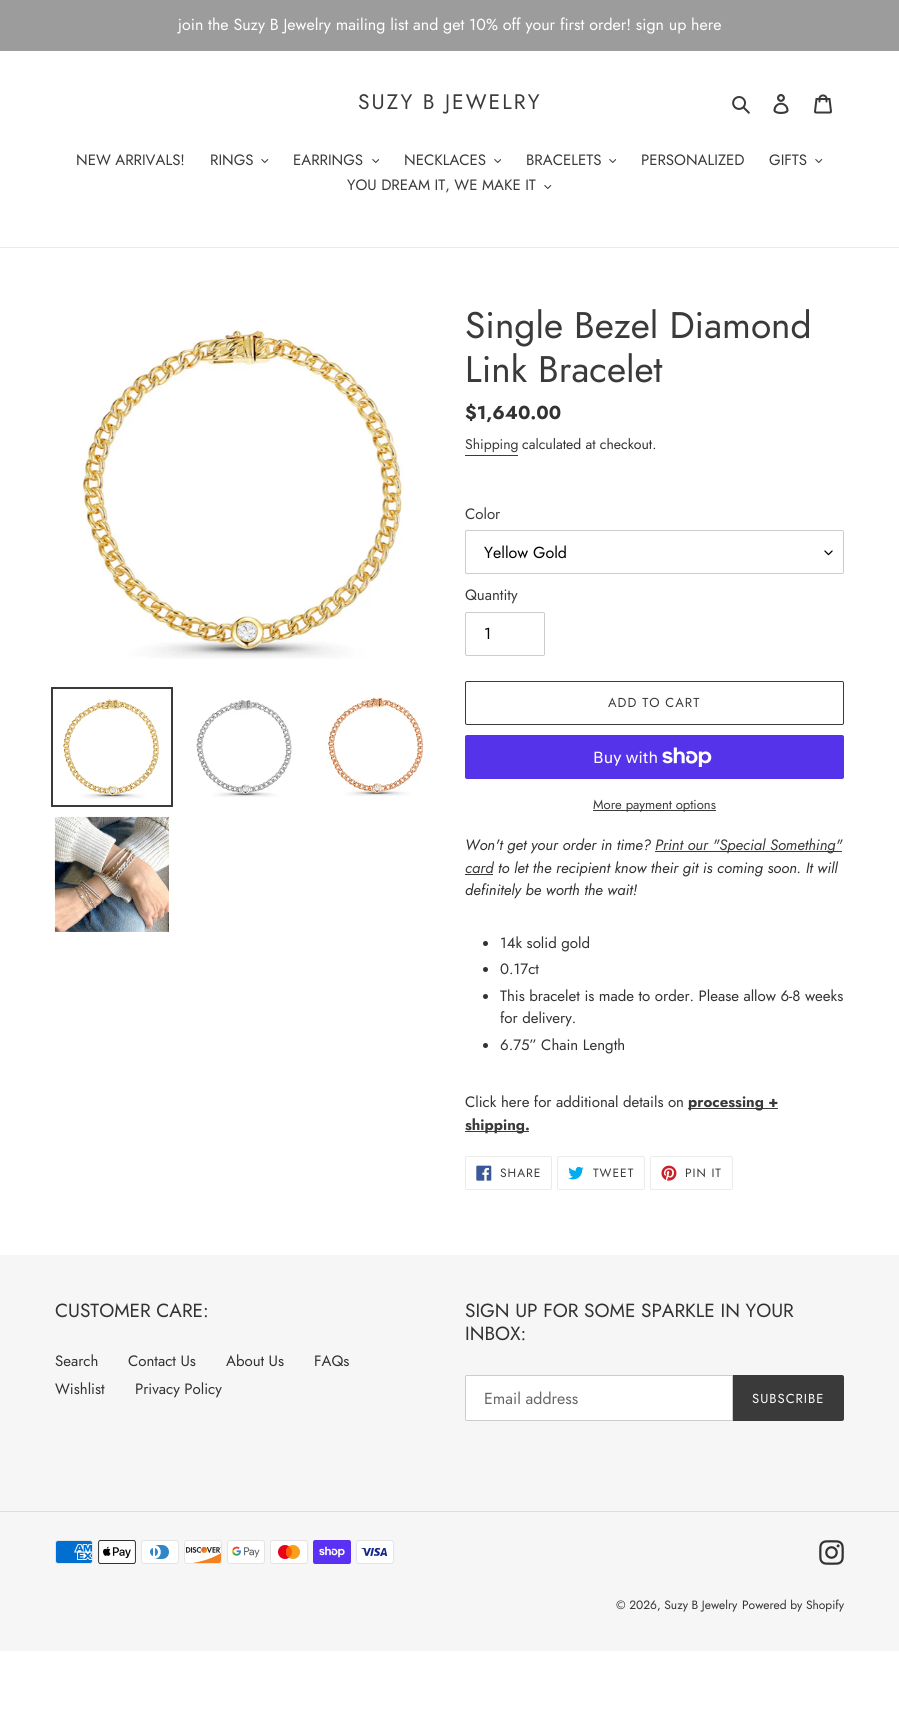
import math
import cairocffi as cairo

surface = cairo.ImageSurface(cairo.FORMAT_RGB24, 899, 1724)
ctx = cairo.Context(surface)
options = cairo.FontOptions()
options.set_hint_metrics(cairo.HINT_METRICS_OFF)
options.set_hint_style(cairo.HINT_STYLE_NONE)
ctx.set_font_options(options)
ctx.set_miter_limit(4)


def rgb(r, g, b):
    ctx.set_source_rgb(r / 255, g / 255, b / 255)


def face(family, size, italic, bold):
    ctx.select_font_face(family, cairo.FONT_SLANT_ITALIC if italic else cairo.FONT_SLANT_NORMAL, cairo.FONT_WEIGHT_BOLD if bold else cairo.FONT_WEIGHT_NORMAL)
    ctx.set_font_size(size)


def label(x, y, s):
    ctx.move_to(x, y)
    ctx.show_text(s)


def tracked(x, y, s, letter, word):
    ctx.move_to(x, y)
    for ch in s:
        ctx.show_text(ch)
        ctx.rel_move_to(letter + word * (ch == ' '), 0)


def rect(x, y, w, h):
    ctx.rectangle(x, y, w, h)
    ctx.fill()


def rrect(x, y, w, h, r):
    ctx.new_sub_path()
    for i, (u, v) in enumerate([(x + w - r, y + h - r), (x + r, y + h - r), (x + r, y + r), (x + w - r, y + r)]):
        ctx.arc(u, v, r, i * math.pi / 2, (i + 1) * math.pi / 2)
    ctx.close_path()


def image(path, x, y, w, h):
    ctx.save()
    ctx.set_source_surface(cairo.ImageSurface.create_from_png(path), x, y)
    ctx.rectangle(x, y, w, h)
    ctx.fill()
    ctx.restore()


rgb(255, 255, 255)
ctx.paint()
rgb(155, 156, 155)
rect(0, 0, 899, 51)
face('Jost', 16, 0, 0)
rgb(255, 255, 255)
label(178, 30, 'join the Suzy B Jewelry mailing list and get 10% off your first order! sign up here')
face('Jost', 21, 0, 0)
rgb(58, 58, 58)
tracked(358, 109, 'SUZY B JEWELRY', 2.1, 0)
image('image0.png', 732, 96, 18, 18)
image('image1.png', 773, 94, 16, 20)
image('image2.png', 814, 94, 18, 20)
rgb(235, 235, 235)
rect(0, 247, 899, 1)
face('Jost', 15, 0, 0)
rgb(58, 58, 58)
label(76, 165, 'NEW ARRIVALS!')
label(210, 165, 'RINGS')
image('image3.png', 261, 159, 8, 4)
label(293, 165, 'EARRINGS')
image('image4.png', 372, 159, 7, 4)
label(404, 165, 'NECKLACES')
image('image4.png', 494, 159, 7, 4)
label(526, 165, 'BRACELETS')
image('image4.png', 609, 159, 7, 4)
label(641, 165, 'PERSONALIZED')
label(769, 165, 'GIFTS')
image('image3.png', 815, 159, 8, 4)
label(347, 190, 'YOU DREAM IT, WE MAKE IT')
image('image3.png', 544, 185, 8, 4)
image('image5.png', 82, 330, 322, 329)
ctx.rectangle(52, 688, 120, 118)
ctx.stroke()
image('image6.png', 63, 699, 100, 100)
image('image7.png', 196, 700, 96, 97)
image('image8.png', 328, 697, 96, 99)
image('image9.png', 54, 816, 115, 116)
face('Jost', 37, 0, 0)
label(465, 338, 'Single Bezel Diamond')
label(465, 382, 'Link Bracelet')
face('Jost', 18.75, 0, 1)
rgb(51, 50, 50)
label(465, 419, '$1,640.00')
face('Jost', 14, 0, 0)
rgb(58, 58, 58)
label(465, 449, 'Shipping')
rect(465, 455, 53, 1)
rgb(51, 50, 50)
label(522, 449, 'calculated at checkout.')
face('Jost', 15, 0, 0)
rgb(58, 58, 58)
label(465, 519, 'Color')
image('image10.png', 824, 550, 9, 6)
rrect(465.5, 530.5, 378, 43, 1.5)
rgb(204, 204, 204)
ctx.set_line_width(1)
ctx.stroke()
face('Jost', 16, 0, 0)
rgb(0, 0, 0)
label(484, 558, 'Yellow Gold')
face('Jost', 15, 0, 0)
rgb(58, 58, 58)
label(465, 600, 'Quantity')
rrect(465.5, 612.5, 79, 43, 1.5)
rgb(204, 204, 204)
ctx.stroke()
face('Jost', 16, 0, 0)
rgb(0, 0, 0)
label(484, 639, '1')
rrect(465.5, 681.5, 378, 43, 1.5)
rgb(58, 58, 58)
ctx.stroke()
face('Jost', 13, 0, 0)
tracked(608, 707, 'ADD TO CART', 1, 0)
rgb(84, 51, 235)
rrect(465, 735, 379, 44, 2)
ctx.fill()
face('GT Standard', 16, 0, 0)
rgb(255, 255, 255)
label(593, 763, 'Buy with')
image('image11.png', 662, 747, 50, 20)
rgb(58, 58, 58)
rect(593, 810, 123, 1)
face('Jost', 13, 0, 0)
label(593, 809, 'More payment options')
face('Jost', 15, 1, 0)
rgb(51, 50, 50)
label(465, 850, 'Won\'t get your order in time?')
rgb(58, 58, 58)
rect(655, 851, 187, 1)
label(655, 850, 'Print our "Special Something"')
label(465, 873, 'card')
rect(465, 874, 28, 1)
rgb(51, 50, 50)
label(498, 873, 'to let the recipient know their git is coming soon. It will')
label(465, 895, 'definitely be worth the wait!')
ctx.new_path()
ctx.arc(485.5, 943.5, 2.5, 0, 2 * math.pi)
ctx.fill()
face('Jost', 15, 0, 0)
label(500, 948, '14k solid gold')
ctx.new_path()
ctx.arc(485.5, 969.5, 2.5, 0, 2 * math.pi)
ctx.fill()
label(500, 974, '0.17ct')
ctx.new_path()
ctx.arc(485.5, 996.5, 2.5, 0, 2 * math.pi)
ctx.fill()
label(500, 1001, 'This bracelet is made to order. Please allow 6-8 weeks')
label(500, 1023, 'for delivery.')
ctx.new_path()
ctx.arc(485.5, 1045.5, 2.5, 0, 2 * math.pi)
ctx.fill()
label(500, 1050, '6.75” Chain Length')
label(465, 1107, 'Click here for additional details on')
rgb(58, 58, 58)
rect(688, 1108, 90, 1)
face('Jost', 15, 0, 1)
label(688, 1107, 'processing +')
rect(465, 1131, 64, 1)
label(465, 1130, 'shipping.')
rrect(465.5, 1156.5, 86, 33, 1.5)
rgb(235, 235, 235)
ctx.stroke()
image('image12.png', 476, 1165, 16, 16)
face('Jost', 12, 0, 0)
rgb(58, 58, 58)
tracked(500, 1177, 'SHARE', 1, 0)
rrect(557.5, 1156.5, 87, 33, 1.5)
rgb(235, 235, 235)
ctx.stroke()
image('image13.png', 568, 1166, 16, 14)
rgb(58, 58, 58)
tracked(593, 1177, 'TWEET', 1, 0)
rrect(650.5, 1156.5, 82, 33, 1.5)
rgb(235, 235, 235)
ctx.stroke()
image('image14.png', 661, 1165, 16, 16)
rgb(58, 58, 58)
tracked(685, 1177, 'PIN IT', 1, 0)
rgb(246, 246, 246)
rect(0, 1255, 899, 396)
face('Jost', 19, 0, 0)
rgb(51, 50, 50)
label(55, 1317, 'CUSTOMER CARE:')
face('Jost', 15, 0, 0)
label(55, 1366, 'Search')
label(128, 1366, 'Contact Us')
label(226, 1366, 'About Us')
label(314, 1366, 'FAQs')
label(55, 1394, 'Wishlist')
label(135, 1394, 'Privacy Policy')
face('Jost', 19, 0, 0)
label(465, 1317, 'SIGN UP FOR SOME SPARKLE IN YOUR')
label(465, 1340, 'INBOX:')
rgb(255, 255, 255)
ctx.new_path()
ctx.move_to(467, 1375.5)
ctx.line_to(732.5, 1375.5)
ctx.line_to(732.5, 1420.5)
ctx.line_to(467, 1420.5)
ctx.curve_to(466, 1420.5, 465.5, 1420, 465.5, 1419)
ctx.line_to(465.5, 1377)
ctx.curve_to(465.5, 1376, 466, 1375.5, 467, 1375.5)
ctx.close_path()
ctx.fill_preserve()
rgb(204, 204, 204)
ctx.stroke()
face('Jost', 16, 0, 0)
rgb(102, 102, 102)
label(484, 1404, 'Email address')
rgb(58, 58, 58)
ctx.new_path()
ctx.move_to(733, 1375)
ctx.line_to(842, 1375)
ctx.curve_to(843, 1375, 844, 1376, 844, 1377)
ctx.line_to(844, 1419)
ctx.curve_to(844, 1420, 843, 1421, 842, 1421)
ctx.line_to(733, 1421)
ctx.close_path()
ctx.fill()
face('Jost', 13, 0, 0)
rgb(255, 255, 255)
tracked(752, 1403, 'SUBSCRIBE', 1, 0)
rgb(221, 221, 221)
rect(0, 1511, 899, 1)
image('image15.png', 55, 1540, 38, 24)
image('image16.png', 98, 1540, 38, 24)
image('image17.png', 141, 1540, 38, 24)
image('image18.png', 184, 1540, 38, 24)
image('image19.png', 227, 1540, 38, 24)
image('image20.png', 270, 1540, 38, 24)
image('image21.png', 313, 1540, 38, 24)
image('image22.png', 356, 1540, 38, 24)
image('image23.png', 819, 1540, 25, 25)
face('Jost', 12, 0, 0)
rgb(51, 50, 50)
label(616, 1609, '© 2026, Suzy B Jewelry')
label(742, 1609, 'Powered by Shopify')
surface.write_to_png('render.png')
